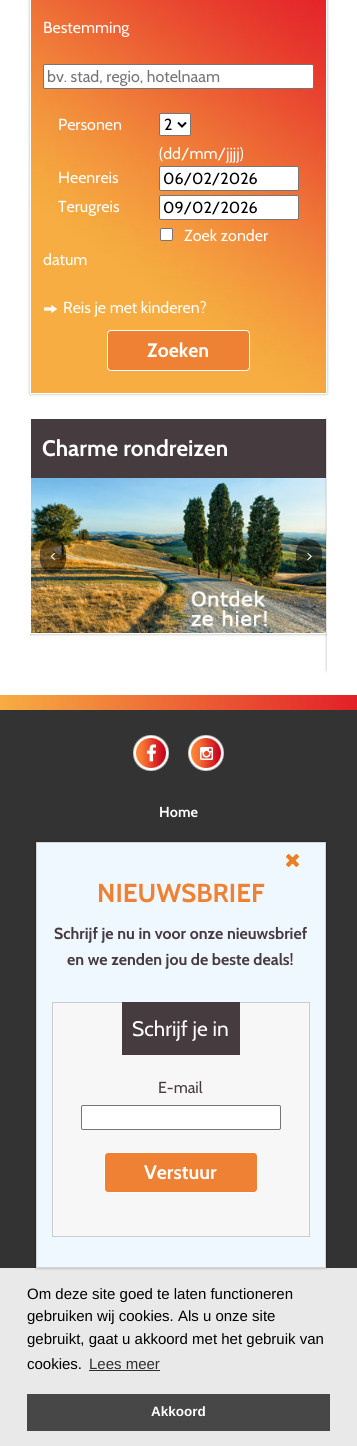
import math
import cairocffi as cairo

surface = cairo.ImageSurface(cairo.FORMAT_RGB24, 357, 1446)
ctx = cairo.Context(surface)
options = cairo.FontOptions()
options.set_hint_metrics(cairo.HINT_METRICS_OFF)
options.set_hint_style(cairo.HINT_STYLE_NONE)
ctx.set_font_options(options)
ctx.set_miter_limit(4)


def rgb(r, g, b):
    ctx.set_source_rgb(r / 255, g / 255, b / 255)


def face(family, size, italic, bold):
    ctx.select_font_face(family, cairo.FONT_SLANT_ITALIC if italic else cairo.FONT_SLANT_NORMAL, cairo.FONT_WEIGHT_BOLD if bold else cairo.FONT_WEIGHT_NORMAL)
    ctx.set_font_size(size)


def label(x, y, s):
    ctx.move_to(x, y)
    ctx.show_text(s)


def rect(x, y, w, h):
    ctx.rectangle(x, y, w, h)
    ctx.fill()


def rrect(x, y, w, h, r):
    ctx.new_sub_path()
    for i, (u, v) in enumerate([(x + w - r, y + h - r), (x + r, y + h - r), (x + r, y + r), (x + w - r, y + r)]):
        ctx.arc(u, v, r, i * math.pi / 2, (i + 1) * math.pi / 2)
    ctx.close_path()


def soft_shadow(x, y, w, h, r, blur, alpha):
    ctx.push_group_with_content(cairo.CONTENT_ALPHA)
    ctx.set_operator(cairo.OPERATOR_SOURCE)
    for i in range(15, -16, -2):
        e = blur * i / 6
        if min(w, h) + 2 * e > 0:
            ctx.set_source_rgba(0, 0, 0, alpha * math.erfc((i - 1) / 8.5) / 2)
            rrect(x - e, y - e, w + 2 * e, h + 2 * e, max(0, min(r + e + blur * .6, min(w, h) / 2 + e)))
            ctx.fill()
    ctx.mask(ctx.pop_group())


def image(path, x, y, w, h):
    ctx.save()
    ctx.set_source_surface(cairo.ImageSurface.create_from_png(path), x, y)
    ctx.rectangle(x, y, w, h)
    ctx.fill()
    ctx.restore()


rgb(255, 255, 255)
ctx.paint()
rgb(0, 0, 0)
soft_shadow(30, -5, 297, 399, 0, 1.5, 0.3)
image('image0.png', 31, 0, 295, 393)
ctx.rectangle(30.5, -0.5, 296, 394)
rgb(255, 255, 255)
ctx.set_line_width(1)
ctx.stroke()
face('Cabin', 16, 0, 0)
label(43, 33, 'Bestemming')
rrect(43.5, 64.5, 270, 24, 1.5)
ctx.fill_preserve()
rgb(118, 118, 118)
ctx.stroke()
rgb(117, 117, 117)
label(47, 82, 'bv. stad, regio, hotelnaam')
rgb(255, 255, 255)
label(58, 130, 'Personen')
rrect(159.5, 113.5, 31, 22, 1.5)
ctx.fill_preserve()
rgb(118, 118, 118)
ctx.stroke()
ctx.new_path()
ctx.move_to(178, 122.5)
ctx.line_to(182, 126.5)
ctx.line_to(186, 122.5)
rgb(0, 0, 0)
ctx.set_line_width(2)
ctx.stroke()
label(164, 130, '2')
rgb(255, 255, 255)
label(159, 159, '(dd/mm/jjjj)')
label(58, 183, 'Heenreis')
rrect(159.5, 166.5, 139, 24, 1.5)
ctx.fill_preserve()
rgb(118, 118, 118)
ctx.set_line_width(1)
ctx.stroke()
rgb(0, 0, 0)
label(163, 184, '06/02/2026')
rgb(255, 255, 255)
label(58, 212, 'Terugreis')
rrect(159.5, 195.5, 139, 24, 1.5)
ctx.fill_preserve()
rgb(118, 118, 118)
ctx.stroke()
rgb(0, 0, 0)
label(163, 213, '09/02/2026')
rgb(255, 255, 255)
rrect(160.5, 228.5, 12, 12, 1.5)
ctx.fill_preserve()
rgb(118, 118, 118)
ctx.stroke()
rgb(255, 255, 255)
label(184, 241, 'Zoek zonder')
label(43, 265, 'datum')
image('image1.png', 44, 305, 13, 8)
label(63, 313, 'Reis je met kinderen?')
rgb(238, 129, 51)
rrect(107.5, 330.5, 142, 40, 3.5)
ctx.fill_preserve()
rgb(255, 255, 255)
ctx.stroke()
face('Cabin', 19.5, 0, 1)
label(147, 357, 'Zoeken')
ctx.save()
ctx.rectangle(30, 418, 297, 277)
ctx.clip()
rgb(0, 0, 0)
soft_shadow(-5, 418, 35, 216, 0, 1.5, 0.3)
soft_shadow(30, 418, 297, 216, 0, 1.5, 0.3)
ctx.restore()
ctx.rectangle(30.5, 418.5, 296, 215)
ctx.stroke()
rgb(70, 59, 63)
rect(31, 419, 295, 59)
face('Cabin', 22.5, 0, 1)
rgb(255, 255, 255)
label(42, 456, 'Charme rondreizen')
image('image2.png', 31, 478, 295, 155)
ctx.save()
ctx.rectangle(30, 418, 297, 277)
ctx.clip()
rgb(0, 0, 0)
soft_shadow(327, 418, 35, 253, 0, 1.5, 0.3)
ctx.restore()
ctx.set_source_rgba(0, 0, 0, 0.5)
rrect(40, 539, 26, 34, 13)
ctx.fill()
face('Cabin', 16, 0, 0)
rgb(255, 255, 255)
label(50, 561, '<')
ctx.set_source_rgba(0, 0, 0, 0.5)
rrect(296, 539, 26, 34, 13)
ctx.fill()
rgb(255, 255, 255)
label(306, 561, '>')
gradient = cairo.LinearGradient(357, 703, 0, 703)
gradient.add_color_stop_rgba(0, 0.886, 0.125, 0.157, 1)
gradient.add_color_stop_rgba(1, 0.969, 0.678, 0.259, 1)
ctx.set_source(gradient)
rect(0, 695, 357, 15)
rgb(51, 51, 51)
rect(0, 710, 357, 558)
image('image3.png', 133, 735, 36, 36)
image('image4.png', 188, 735, 36, 36)
face('Cabin', 14.5, 0, 1)
rgb(255, 255, 255)
label(159, 817, 'Home')
rgb(233, 233, 233)
rect(0, 1268, 357, 178)
rgb(0, 0, 0)
soft_shadow(36, 842, 290, 426, 0, 1.5, 0.3)
ctx.rectangle(36.5, 842.5, 289, 425)
rgb(211, 211, 211)
ctx.stroke()
rgb(240, 248, 255)
rect(37, 843, 288, 424)
image('image5.png', 286, 854, 13, 13)
face('Cabin', 26, 0, 1)
rgb(238, 129, 51)
label(97, 902, 'NIEUWSBRIEF')
face('Cabin', 16, 0, 1)
rgb(70, 59, 63)
label(54, 939, 'Schrijf je nu in voor onze nieuwsbrief')
label(67, 965, 'en we zenden jou de beste deals!')
rgb(247, 247, 247)
ctx.rectangle(52.5, 1002.5, 257, 234)
ctx.fill_preserve()
rgb(204, 204, 204)
ctx.stroke()
rgb(70, 59, 63)
rect(122, 1002, 118, 53)
face('Cabin', 21, 0, 0)
rgb(255, 255, 255)
label(132, 1036, 'Schrijf je in')
face('Cabin', 16, 0, 0)
rgb(70, 59, 63)
label(158, 1093, 'E-mail')
rgb(255, 255, 255)
rrect(81.5, 1105.5, 199, 24, 1.5)
ctx.fill_preserve()
rgb(118, 118, 118)
ctx.stroke()
rgb(238, 129, 51)
rrect(104.5, 1152.5, 153, 40, 3.5)
ctx.fill_preserve()
rgb(255, 255, 255)
ctx.stroke()
face('Cabin', 19.5, 0, 1)
label(144, 1179, 'Verstuur')
face('Liberation Sans', 15, 0, 0)
rgb(0, 0, 0)
label(27, 1299, 'Om deze site goed te laten functioneren')
label(27, 1321, 'gebruiken wij cookies. Als u onze site')
label(27, 1344, 'gebruikt, gaat u akkoord met het gebruik van')
label(27, 1369, 'cookies.')
rgb(47, 47, 47)
label(89, 1369, 'Lees meer')
rect(89, 1370, 71, 1)
rgb(72, 71, 71)
rect(27, 1394, 303, 37)
face('Liberation Sans', 13.5, 0, 1)
rgb(255, 255, 255)
label(151, 1416, 'Akkoord')
surface.write_to_png('render.png')
